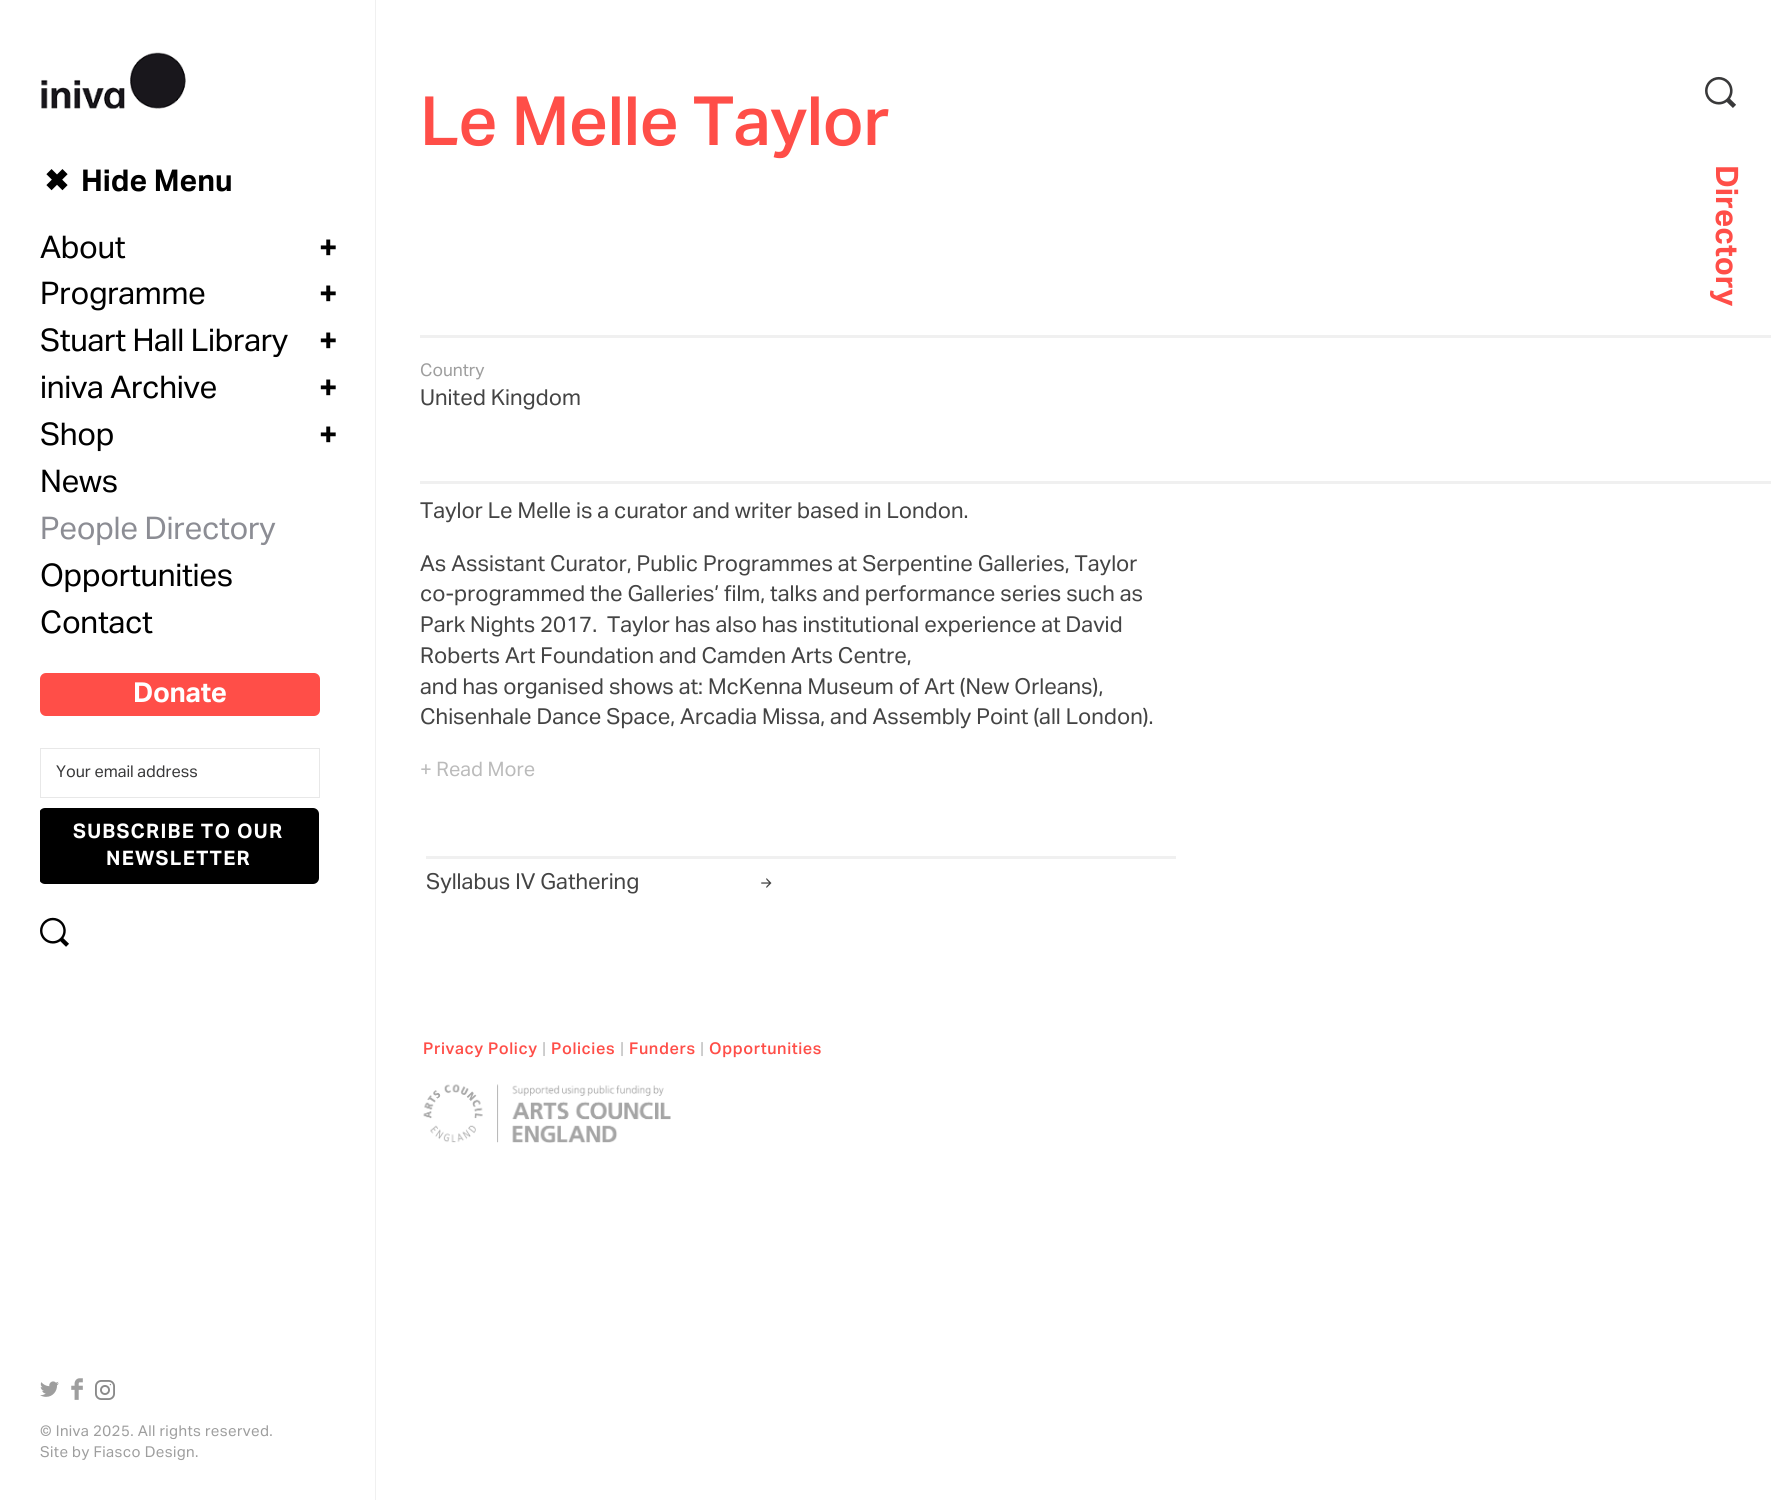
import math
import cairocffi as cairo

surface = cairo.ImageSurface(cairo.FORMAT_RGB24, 1771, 1500)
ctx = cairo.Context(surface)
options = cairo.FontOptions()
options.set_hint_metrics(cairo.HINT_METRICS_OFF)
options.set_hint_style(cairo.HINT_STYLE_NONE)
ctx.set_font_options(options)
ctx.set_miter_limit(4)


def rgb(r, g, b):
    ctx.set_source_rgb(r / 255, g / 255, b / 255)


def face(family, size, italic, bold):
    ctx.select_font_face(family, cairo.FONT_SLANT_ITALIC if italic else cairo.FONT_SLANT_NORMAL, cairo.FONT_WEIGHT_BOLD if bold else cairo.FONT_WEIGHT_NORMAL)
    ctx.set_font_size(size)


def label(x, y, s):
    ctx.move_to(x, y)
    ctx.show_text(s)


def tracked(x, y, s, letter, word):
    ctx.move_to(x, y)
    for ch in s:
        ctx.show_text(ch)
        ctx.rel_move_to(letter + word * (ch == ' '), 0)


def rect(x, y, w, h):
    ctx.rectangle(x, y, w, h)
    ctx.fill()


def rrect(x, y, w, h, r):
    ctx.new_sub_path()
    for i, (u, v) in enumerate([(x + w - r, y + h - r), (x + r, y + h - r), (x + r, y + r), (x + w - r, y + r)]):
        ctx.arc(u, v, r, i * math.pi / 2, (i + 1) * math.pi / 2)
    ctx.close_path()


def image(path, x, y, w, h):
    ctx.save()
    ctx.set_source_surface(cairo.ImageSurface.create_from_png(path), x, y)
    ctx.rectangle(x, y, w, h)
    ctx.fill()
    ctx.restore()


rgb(255, 255, 255)
ctx.paint()
image('image0.png', 41, 52, 145, 57)
face('DejaVu Sans', 30, 0, 1)
rgb(0, 0, 0)
label(44, 191, '✖')
face('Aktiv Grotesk', 30, 0, 1)
label(81, 191, 'Hide Menu')
face('Aktiv Grotesk', 31.25, 0, 0)
tracked(40, 258, 'About', -0.3, 0)
face('Aktiv Grotesk', 31.25, 0, 1)
tracked(319, 258, '+', -0.3, 0)
face('Aktiv Grotesk', 31.25, 0, 0)
tracked(40, 304, 'Programme', -0.3, 0)
face('Aktiv Grotesk', 31.25, 0, 1)
tracked(319, 304, '+', -0.3, 0)
face('Aktiv Grotesk', 31.25, 0, 0)
tracked(40, 351, 'Stuart Hall Library', -0.3, 0)
face('Aktiv Grotesk', 31.25, 0, 1)
tracked(319, 351, '+', -0.3, 0)
face('Aktiv Grotesk', 31.25, 0, 0)
tracked(40, 398, 'iniva Archive', -0.3, 0)
face('Aktiv Grotesk', 31.25, 0, 1)
tracked(319, 398, '+', -0.3, 0)
face('Aktiv Grotesk', 31.25, 0, 0)
tracked(40, 445, 'Shop', -0.3, 0)
face('Aktiv Grotesk', 31.25, 0, 1)
tracked(319, 445, '+', -0.3, 0)
face('Aktiv Grotesk', 31.25, 0, 0)
tracked(40, 492, 'News', -0.3, 0)
rgb(140, 141, 148)
tracked(40, 539, 'People Directory', -0.3, 0)
rgb(0, 0, 0)
tracked(40, 586, 'Opportunities', -0.3, 0)
tracked(40, 633, 'Contact', -0.3, 0)
rgb(255, 78, 72)
rrect(40, 673, 280, 43, 6)
ctx.fill()
face('Aktiv Grotesk', 27.5, 0, 1)
rgb(255, 255, 255)
tracked(133, 702, 'Donate', -0.3, 0)
ctx.rectangle(40.5, 748.5, 279, 49)
rgb(232, 232, 232)
ctx.set_line_width(1)
ctx.stroke()
face('Aktiv Grotesk', 16.25, 0, 0)
rgb(57, 57, 58)
label(56, 777, 'Your email address')
ctx.save()
ctx.rectangle(40, 100, 298, 866)
ctx.clip()
rgb(0, 0, 0)
rrect(39, 808, 280, 76, 6)
ctx.fill()
ctx.restore()
face('Aktiv Grotesk', 20, 0, 1)
rgb(255, 255, 255)
tracked(73, 838, 'SUBSCRIBE TO OUR', 1.25, 0)
tracked(106, 865, 'NEWSLETTER', 1.25, 0)
image('image1.png', 40, 917, 29, 30)
image('image2.png', 40, 1381, 19, 16)
image('image3.png', 71, 1378, 12, 22)
image('image4.png', 95, 1380, 20, 20)
face('Aktiv Grotesk', 15, 0, 0)
rgb(158, 158, 158)
tracked(40, 1436, '© Iniva 2025. All rights reserved.', 0.4, 0)
tracked(40, 1457, 'Site by Fiasco Design.', 0.4, 0)
rgb(240, 240, 240)
rect(375, 0, 1, 1500)
rect(420, 335, 1351, 3)
face('Aktiv Grotesk Medium', 68, 0, 0)
rgb(255, 78, 72)
tracked(420, 145, 'Le Melle Taylor', -0.7, 0)
face('Aktiv Grotesk', 17.5, 0, 0)
rgb(158, 158, 158)
label(420, 376, 'Country')
face('Aktiv Grotesk', 22, 0, 0)
rgb(68, 68, 68)
label(420, 405, 'United Kingdom')
rgb(240, 240, 240)
rect(420, 481, 1351, 3)
rgb(68, 68, 68)
label(420, 518, 'Taylor Le Melle is a curator and writer based in London.')
label(420, 571, 'As Assistant Curator, Public Programmes at Serpentine Galleries, Taylor')
label(420, 601, 'co-programmed the Galleries’ film, talks and performance series such as')
label(420, 632, 'Park Nights 2017.  Taylor has also has institutional experience at David')
label(420, 663, 'Roberts Art Foundation and Camden Arts Centre,')
label(420, 694, 'and has organised shows at: McKenna Museum of Art (New Orleans),')
label(420, 724, 'Chisenhale Dance Space, Arcadia Missa, and Assembly Point (all London).')
face('Aktiv Grotesk', 20, 0, 0)
rgb(187, 187, 187)
label(420, 776, '+ Read More')
rgb(240, 240, 240)
rect(426, 856, 750, 3)
face('Aktiv Grotesk', 22, 0, 0)
rgb(68, 68, 68)
label(426, 889, 'Syllabus IV Gathering')
image('image5.png', 761, 878, 11, 10)
image('image6.png', 1705, 76, 31, 32)
face('Aktiv Grotesk', 31, 0, 1)
rgb(255, 78, 72)
ctx.save()
ctx.translate(1716, 165)
ctx.rotate(90 * math.pi / 180)
label(0, 0, 'Directory')
ctx.restore()
face('Aktiv Grotesk Medium', 16.25, 0, 0)
tracked(423, 1054, 'Privacy Policy', 0.6, 0)
rgb(200, 200, 200)
tracked(542, 1054, '|', 0.6, 0)
rgb(255, 78, 72)
tracked(551, 1054, 'Policies', 0.6, 0)
rgb(200, 200, 200)
tracked(620, 1054, '|', 0.6, 0)
rgb(255, 78, 72)
tracked(629, 1054, 'Funders', 0.6, 0)
rgb(200, 200, 200)
tracked(700, 1054, '|', 0.6, 0)
rgb(255, 78, 72)
tracked(709, 1054, 'Opportunities', 0.6, 0)
image('image7.png', 423, 1084, 248, 59)
surface.write_to_png('render.png')
